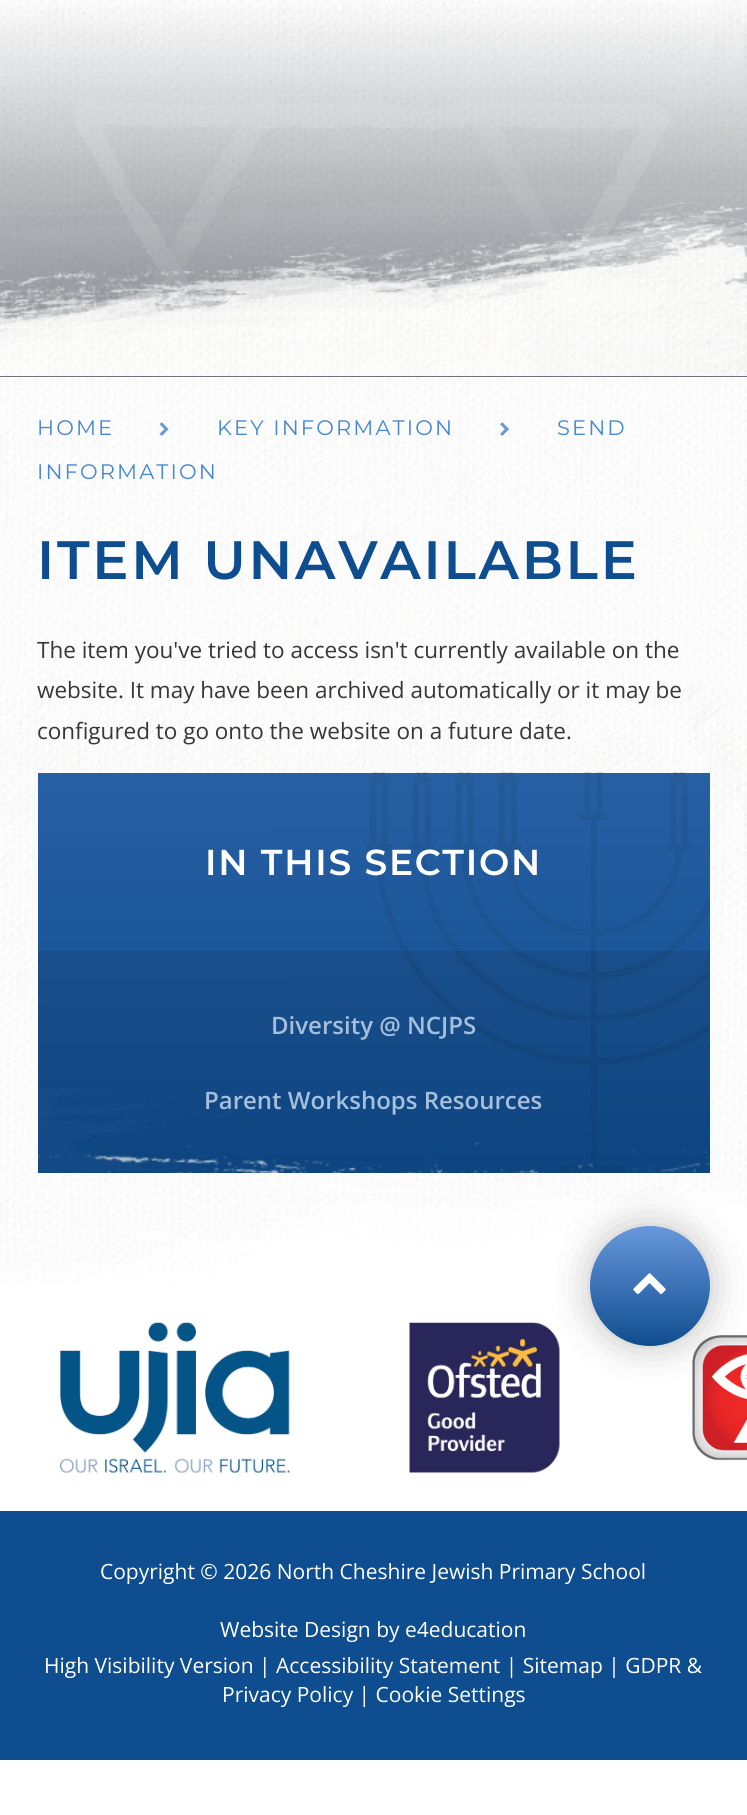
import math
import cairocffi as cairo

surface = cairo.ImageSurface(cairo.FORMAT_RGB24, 747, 1815)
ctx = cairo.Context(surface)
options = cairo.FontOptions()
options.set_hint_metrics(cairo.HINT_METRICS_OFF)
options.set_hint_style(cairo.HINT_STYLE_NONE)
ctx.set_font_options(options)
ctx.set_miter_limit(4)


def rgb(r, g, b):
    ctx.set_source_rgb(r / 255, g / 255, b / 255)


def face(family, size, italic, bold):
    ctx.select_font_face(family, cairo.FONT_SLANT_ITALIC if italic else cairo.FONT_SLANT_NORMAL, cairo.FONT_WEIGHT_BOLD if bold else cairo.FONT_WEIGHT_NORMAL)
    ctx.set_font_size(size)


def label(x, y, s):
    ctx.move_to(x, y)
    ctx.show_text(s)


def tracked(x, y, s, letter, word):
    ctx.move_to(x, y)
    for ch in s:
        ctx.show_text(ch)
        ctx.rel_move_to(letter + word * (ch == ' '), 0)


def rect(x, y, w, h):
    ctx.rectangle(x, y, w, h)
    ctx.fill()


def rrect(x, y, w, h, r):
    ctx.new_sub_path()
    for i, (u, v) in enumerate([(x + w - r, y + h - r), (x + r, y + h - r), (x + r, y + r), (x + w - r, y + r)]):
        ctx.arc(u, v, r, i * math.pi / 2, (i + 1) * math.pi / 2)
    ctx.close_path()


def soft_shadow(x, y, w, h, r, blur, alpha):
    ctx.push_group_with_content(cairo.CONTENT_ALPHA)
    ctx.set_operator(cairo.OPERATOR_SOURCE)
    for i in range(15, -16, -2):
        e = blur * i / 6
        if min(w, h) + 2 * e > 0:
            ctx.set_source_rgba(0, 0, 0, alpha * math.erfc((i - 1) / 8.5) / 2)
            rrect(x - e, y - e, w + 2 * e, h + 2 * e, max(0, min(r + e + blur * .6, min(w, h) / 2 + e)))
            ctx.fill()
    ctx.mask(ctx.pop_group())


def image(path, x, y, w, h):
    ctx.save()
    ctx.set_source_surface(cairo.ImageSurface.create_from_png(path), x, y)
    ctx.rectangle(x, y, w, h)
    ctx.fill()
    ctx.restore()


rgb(255, 255, 255)
ctx.paint()
image('image0.png', 0, 0, 747, 1323)
image('image2.png', 0, 186, 747, 190)
image('image1.png', 75, 101, 594, 207)
face('Montserrat', 21, 0, 0)
rgb(69, 135, 208)
tracked(37, 435, 'HOME', 2.1, 0)
image('image3.png', 159, 422, 10, 14)
tracked(217, 435, 'KEY INFORMATION', 2.1, 0)
image('image4.png', 500, 422, 9, 14)
tracked(557, 435, 'SEND', 2.1, 0)
tracked(37, 479, 'INFORMATION', 2.1, 0)
face('Montserrat SemiBold', 54, 0, 0)
rgb(14, 77, 143)
tracked(37, 579, 'ITEM UNAVAILABLE', 2.75, 0)
face('Open Sans', 22.5, 0, 0)
rgb(55, 55, 55)
label(37, 658, 'The item you\'ve tried to access isn\'t currently available on the')
label(37, 698, 'website. It may have been archived automatically or it may be')
label(37, 739, 'configured to go onto the website on a future date.')
rgb(15, 77, 143)
rect(38, 773, 672, 400)
image('image5.png', 366, 772, 344, 400)
gradient = cairo.LinearGradient(373, 773, 374, 1173)
gradient.add_color_stop_rgba(0, 0.251, 0.451, 0.725, 0.5)
gradient.add_color_stop_rgba(1, 0.059, 0.302, 0.561, 0.5)
ctx.set_source(gradient)
rect(38, 773, 672, 399)
face('Montserrat SemiBold', 36, 0, 0)
rgb(255, 255, 255)
tracked(205, 875, 'IN THIS SECTION', 1.75, 0)
image('image6.png', 0, 1088, 747, 423)
ctx.set_source_rgba(0, 0, 0, 0.1)
rect(38, 951, 672, 222)
face('Open Sans SemiBold', 24, 0, 0)
rgb(166, 191, 220)
label(271, 1034, 'Diversity @ NCJPS')
label(204, 1109, 'Parent Workshops Resources')
image('image7.png', 60, 1322, 230, 151)
image('image8.png', 409, 1322, 151, 151)
image('image9.png', 692, 1335, 55, 126)
rgb(14, 77, 143)
rect(0, 1511, 747, 249)
rgb(0, 0, 0)
soft_shadow(590, 1226, 120, 120, 60, 19, 0.25)
gradient = cairo.LinearGradient(650, 1226, 650, 1346)
gradient.add_color_stop_rgba(0, 0.404, 0.596, 0.859, 1)
gradient.add_color_stop_rgba(1, 0.059, 0.302, 0.561, 1)
ctx.set_source(gradient)
ctx.arc(650, 1286, 60, 0, 2 * math.pi)
ctx.fill()
image('image10.png', 633, 1273, 33, 21)
face('Open Sans', 21, 0, 0)
rgb(255, 255, 255)
label(100, 1579, 'Copyright © 2026 North Cheshire Jewish Primary School')
label(220, 1637, 'Website Design by e4education')
label(44, 1673, 'High Visibility Version | Accessibility Statement | Sitemap | GDPR &')
label(222, 1702, 'Privacy Policy | Cookie Settings')
surface.write_to_png('render.png')
